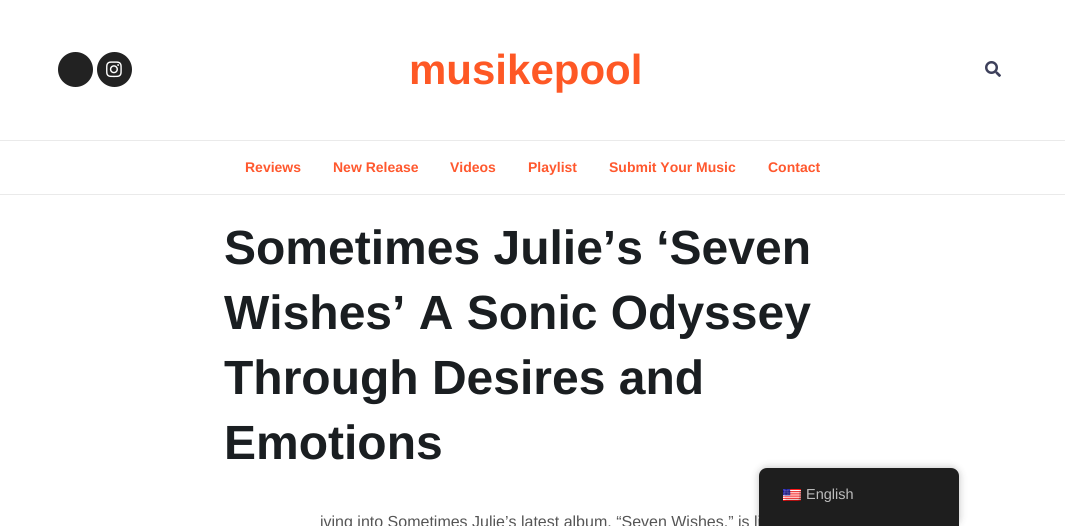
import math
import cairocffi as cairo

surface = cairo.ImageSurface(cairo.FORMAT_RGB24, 1065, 526)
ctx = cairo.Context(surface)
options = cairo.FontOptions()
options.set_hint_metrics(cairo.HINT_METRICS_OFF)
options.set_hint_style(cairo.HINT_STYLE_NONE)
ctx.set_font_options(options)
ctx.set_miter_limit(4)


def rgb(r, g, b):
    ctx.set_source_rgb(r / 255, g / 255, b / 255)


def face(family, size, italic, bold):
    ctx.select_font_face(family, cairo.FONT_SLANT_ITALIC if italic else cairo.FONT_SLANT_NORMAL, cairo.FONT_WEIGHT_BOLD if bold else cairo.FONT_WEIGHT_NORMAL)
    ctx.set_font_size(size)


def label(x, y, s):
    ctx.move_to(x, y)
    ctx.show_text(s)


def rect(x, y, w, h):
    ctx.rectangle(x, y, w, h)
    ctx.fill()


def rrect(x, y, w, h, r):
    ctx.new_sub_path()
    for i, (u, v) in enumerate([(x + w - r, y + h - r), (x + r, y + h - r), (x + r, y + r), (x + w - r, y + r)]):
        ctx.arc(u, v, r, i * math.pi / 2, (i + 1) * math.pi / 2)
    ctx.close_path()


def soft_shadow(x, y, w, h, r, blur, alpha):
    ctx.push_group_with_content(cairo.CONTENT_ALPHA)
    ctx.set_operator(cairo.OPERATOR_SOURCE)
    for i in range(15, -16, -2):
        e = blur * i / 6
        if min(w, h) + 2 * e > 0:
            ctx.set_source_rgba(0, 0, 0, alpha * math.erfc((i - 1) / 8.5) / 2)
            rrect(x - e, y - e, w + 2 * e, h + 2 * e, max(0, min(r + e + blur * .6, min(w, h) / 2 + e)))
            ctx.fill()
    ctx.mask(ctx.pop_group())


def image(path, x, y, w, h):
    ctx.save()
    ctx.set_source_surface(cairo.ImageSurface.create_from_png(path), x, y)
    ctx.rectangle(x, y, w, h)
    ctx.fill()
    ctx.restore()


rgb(255, 255, 255)
ctx.paint()
rgb(34, 34, 34)
ctx.arc(75.5, 69.5, 17.5, 0, 2 * math.pi)
ctx.fill()
ctx.arc(114.5, 69.5, 17.5, 0, 2 * math.pi)
ctx.fill()
image('image0.png', 106, 61, 16, 17)
face('Liberation Sans', 42, 0, 1)
rgb(254, 88, 37)
label(409, 84, 'musikepool')
image('image1.png', 985, 61, 16, 16)
rgb(234, 234, 234)
rect(0, 140, 1065, 1)
rect(0, 194, 1065, 1)
face('Liberation Sans', 14, 0, 1)
rgb(255, 88, 46)
label(245, 172, 'Reviews')
label(333, 172, 'New Release')
label(450, 172, 'Videos')
label(528, 172, 'Playlist')
label(609, 172, 'Submit Your Music')
label(768, 172, 'Contact')
face('Liberation Sans', 48, 0, 1)
rgb(26, 30, 33)
label(224, 264, 'Sometimes Julie’s ‘Seven')
label(224, 329, 'Wishes’ A Sonic Odyssey')
label(224, 394, 'Through Desires and')
label(224, 459, 'Emotions')
face('Liberation Sans', 16, 0, 0)
rgb(85, 85, 85)
label(320, 527, 'iving into Sometimes Julie’s latest album, “Seven Wishes,” is li')
rgb(0, 0, 0)
soft_shadow(759, 468, 200, 58, 8, 4, 0.25)
rgb(30, 30, 30)
ctx.new_path()
ctx.move_to(767, 468)
ctx.line_to(951, 468)
ctx.curve_to(955.5, 468, 959, 471.5, 959, 476)
ctx.line_to(959, 526)
ctx.line_to(759, 526)
ctx.line_to(759, 476)
ctx.curve_to(759, 471.5, 762.5, 468, 767, 468)
ctx.close_path()
ctx.fill()
image('image2.png', 783, 489, 18, 12)
face('Liberation Sans', 14.5, 0, 0)
rgb(189, 189, 189)
label(806, 499, 'English')
surface.write_to_png('render.png')
